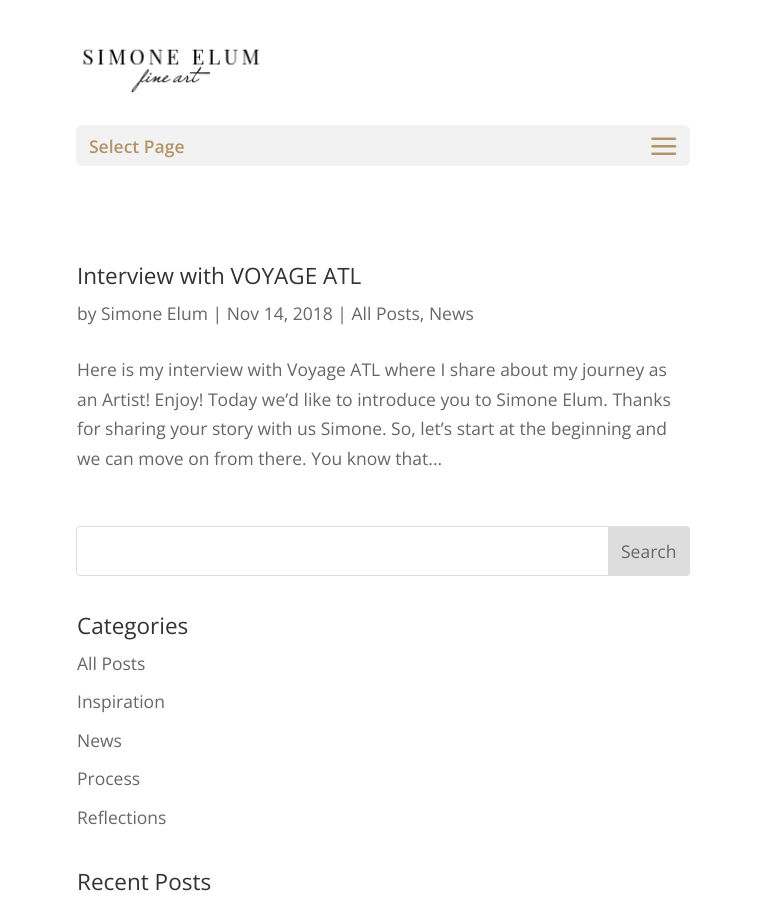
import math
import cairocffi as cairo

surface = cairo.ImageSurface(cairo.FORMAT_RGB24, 766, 900)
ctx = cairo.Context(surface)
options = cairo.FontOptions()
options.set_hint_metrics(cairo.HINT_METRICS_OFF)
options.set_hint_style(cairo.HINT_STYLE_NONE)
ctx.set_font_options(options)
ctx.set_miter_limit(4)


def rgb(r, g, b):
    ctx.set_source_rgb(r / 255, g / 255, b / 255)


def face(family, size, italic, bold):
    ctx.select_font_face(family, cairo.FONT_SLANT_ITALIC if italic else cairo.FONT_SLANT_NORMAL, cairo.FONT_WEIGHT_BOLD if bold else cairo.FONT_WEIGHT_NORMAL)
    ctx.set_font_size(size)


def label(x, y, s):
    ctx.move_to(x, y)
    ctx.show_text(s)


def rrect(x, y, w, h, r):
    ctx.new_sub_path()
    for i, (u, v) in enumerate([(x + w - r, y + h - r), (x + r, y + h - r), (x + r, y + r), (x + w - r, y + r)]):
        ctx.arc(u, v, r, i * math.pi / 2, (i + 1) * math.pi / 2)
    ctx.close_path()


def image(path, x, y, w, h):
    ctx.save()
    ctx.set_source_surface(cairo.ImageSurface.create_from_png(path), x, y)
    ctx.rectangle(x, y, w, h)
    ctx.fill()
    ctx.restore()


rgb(255, 255, 255)
ctx.paint()
image('image0.png', 83, 49, 177, 44)
rgb(242, 242, 242)
rrect(76, 125, 614, 41, 6)
ctx.fill()
face('Open Sans SemiBold', 17.5, 0, 0)
rgb(178, 148, 103)
label(89, 153, 'Select Page')
image('image1.png', 651, 137, 26, 18)
face('Open Sans', 22.5, 0, 0)
rgb(51, 51, 51)
label(77, 284, 'Interview with VOYAGE ATL')
face('Open Sans', 17.5, 0, 0)
rgb(102, 102, 102)
label(77, 320, 'by Simone Elum | Nov 14, 2018 | All Posts, News')
label(77, 376, 'Here is my interview with Voyage ATL where I share about my journey as')
label(77, 406, 'an Artist! Enjoy! Today we’d like to introduce you to Simone Elum. Thanks')
label(77, 435, 'for sharing your story with us Simone. So, let’s start at the beginning and')
label(77, 465, 'we can move on from there. You know that...')
rrect(76.5, 526.5, 613, 49, 3.5)
rgb(221, 221, 221)
ctx.set_line_width(1)
ctx.stroke()
ctx.new_path()
ctx.move_to(608.5, 526.5)
ctx.line_to(686, 526.5)
ctx.curve_to(688, 526.5, 689.5, 528, 689.5, 530)
ctx.line_to(689.5, 572)
ctx.curve_to(689.5, 574, 688, 575.5, 686, 575.5)
ctx.line_to(608.5, 575.5)
ctx.close_path()
ctx.fill_preserve()
ctx.stroke()
rgb(102, 102, 102)
label(621, 558, 'Search')
face('Open Sans', 22.5, 0, 0)
rgb(51, 51, 51)
label(77, 634, 'Categories')
face('Open Sans', 17.5, 0, 0)
rgb(102, 102, 102)
label(77, 670, 'All Posts')
label(77, 708, 'Inspiration')
label(77, 747, 'News')
label(77, 785, 'Process')
label(77, 824, 'Reflections')
face('Open Sans', 22.5, 0, 0)
rgb(51, 51, 51)
label(77, 890, 'Recent Posts')
surface.write_to_png('render.png')
